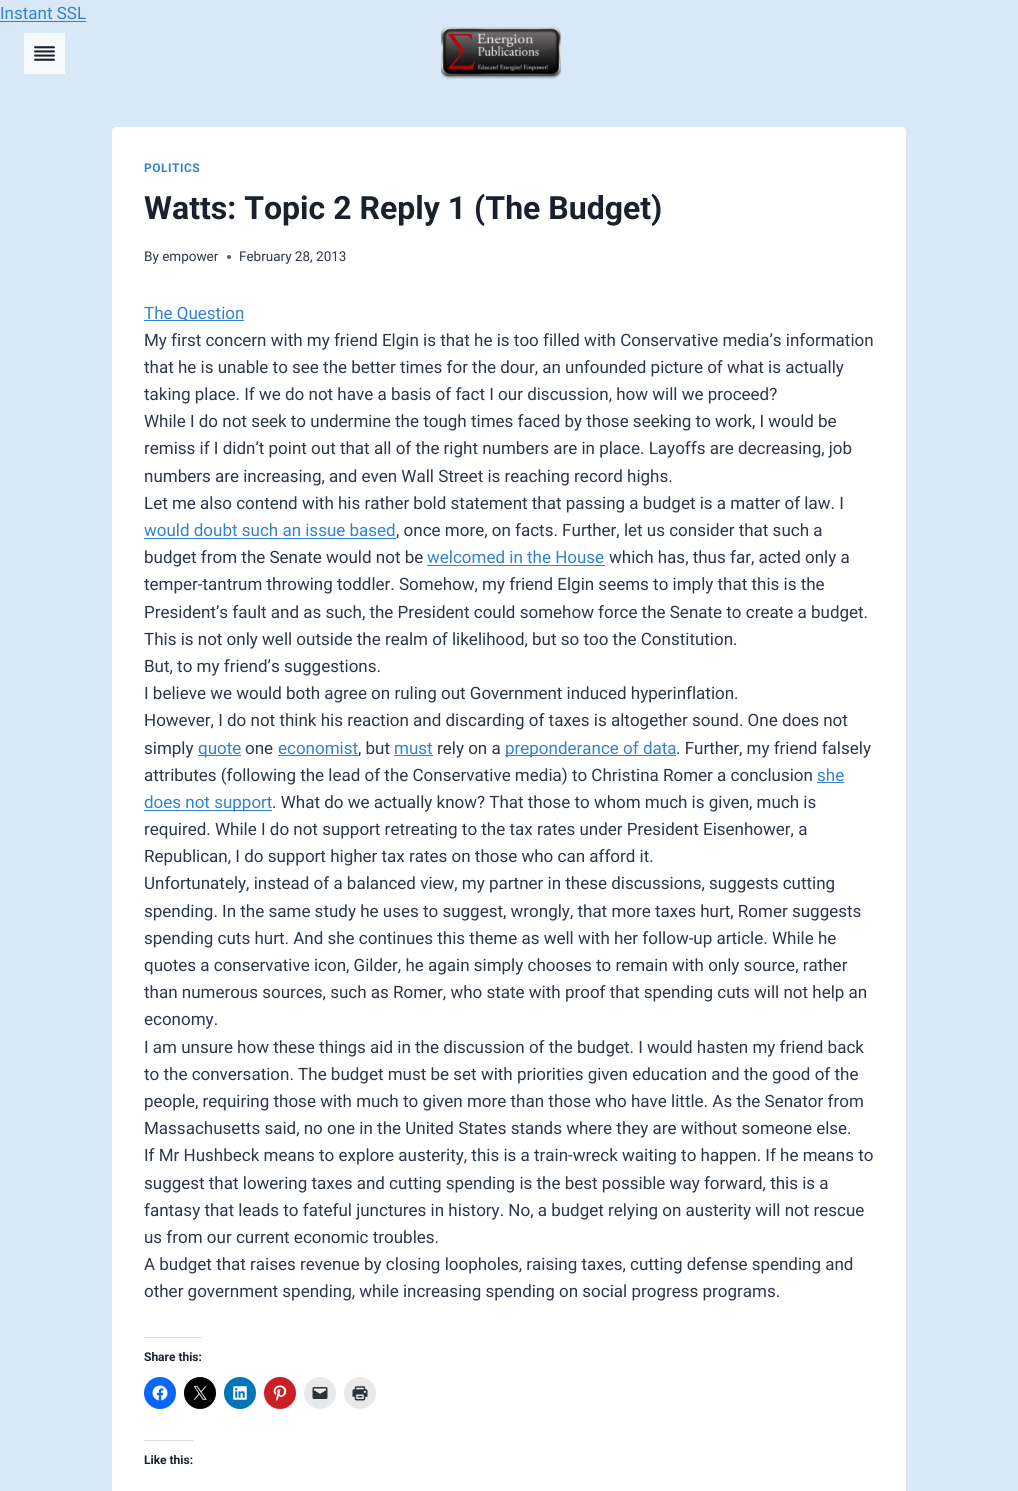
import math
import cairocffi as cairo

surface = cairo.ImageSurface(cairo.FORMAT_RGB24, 1018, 1491)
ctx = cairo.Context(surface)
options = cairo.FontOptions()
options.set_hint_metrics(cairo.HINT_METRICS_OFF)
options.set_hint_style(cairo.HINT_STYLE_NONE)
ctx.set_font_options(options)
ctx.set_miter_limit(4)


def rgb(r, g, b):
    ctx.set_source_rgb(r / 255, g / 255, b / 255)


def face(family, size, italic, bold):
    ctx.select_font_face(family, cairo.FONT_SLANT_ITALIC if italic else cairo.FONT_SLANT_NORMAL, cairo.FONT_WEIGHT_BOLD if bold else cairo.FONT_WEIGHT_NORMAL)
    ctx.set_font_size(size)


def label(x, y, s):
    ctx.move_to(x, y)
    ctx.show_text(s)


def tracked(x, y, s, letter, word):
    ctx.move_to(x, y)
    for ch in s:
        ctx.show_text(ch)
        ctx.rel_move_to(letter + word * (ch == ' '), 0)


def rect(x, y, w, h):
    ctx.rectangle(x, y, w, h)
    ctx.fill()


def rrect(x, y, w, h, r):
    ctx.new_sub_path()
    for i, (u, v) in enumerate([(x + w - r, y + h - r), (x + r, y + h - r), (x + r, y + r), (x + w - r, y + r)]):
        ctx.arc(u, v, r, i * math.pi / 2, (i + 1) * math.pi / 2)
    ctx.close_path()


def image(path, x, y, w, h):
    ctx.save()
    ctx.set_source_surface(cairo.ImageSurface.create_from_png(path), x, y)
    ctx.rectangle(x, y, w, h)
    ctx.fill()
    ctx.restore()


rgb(217, 232, 246)
ctx.paint()
face('Roboto', 17, 0, 0)
rgb(49, 130, 206)
label(0, 19, 'Instant SSL')
rect(0, 21, 86, 1)
rgb(247, 250, 252)
rect(24, 33, 41, 41)
image('image0.png', 34, 46, 21, 15)
image('image1.png', 441, 27, 120, 52)
rgb(255, 255, 255)
rrect(112, 127, 794, 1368, 4)
ctx.fill()
face('Roboto', 12, 0, 1)
rgb(49, 130, 206)
tracked(144, 172, 'POLITICS', 0.5, 0)
face('Roboto', 32, 0, 1)
rgb(26, 32, 44)
label(144, 219, 'Watts: Topic 2 Reply 1 (The Budget)')
face('Roboto', 13.5, 0, 0)
rgb(45, 55, 72)
label(144, 261, 'By empower')
rgb(87, 95, 109)
ctx.new_path()
ctx.arc(229, 257, 2, 0, 2 * math.pi)
ctx.fill()
rgb(45, 55, 72)
label(239, 261, 'February 28, 2013')
rgb(49, 130, 206)
rect(144, 320, 100, 1)
face('Roboto', 17, 0, 0)
label(144, 319, 'The Question')
rgb(45, 55, 72)
label(144, 346, 'My first concern with my friend Elgin is that he is too filled with Conservative media’s information')
label(144, 373, 'that he is unable to see the better times for the dour, an unfounded picture of what is actually')
label(144, 400, 'taking place. If we do not have a basis of fact I our discussion, how will we proceed?')
label(144, 427, 'While I do not seek to undermine the tough times faced by those seeking to work, I would be')
label(144, 454, 'remiss if I didn’t point out that all of the right numbers are in place. Layoffs are decreasing, job')
label(144, 482, 'numbers are increasing, and even Wall Street is reaching record highs.')
label(144, 509, 'Let me also contend with his rather bold statement that passing a budget is a matter of law. I')
rgb(49, 130, 206)
label(144, 536, 'would doubt such an issue based')
rect(144, 538, 252, 1)
rgb(45, 55, 72)
label(396, 536, ', once more, on facts. Further, let us consider that such a')
label(144, 563, 'budget from the Senate would not be')
rgb(49, 130, 206)
label(427, 563, 'welcomed in the House')
rect(427, 565, 178, 1)
rgb(45, 55, 72)
label(609, 563, 'which has, thus far, acted only a')
label(144, 590, 'temper-tantrum throwing toddler. Somehow, my friend Elgin seems to imply that this is the')
label(144, 618, 'President’s fault and as such, the President could somehow force the Senate to create a budget.')
label(144, 645, 'This is not only well outside the realm of likelihood, but so too the Constitution.')
label(144, 672, 'But, to my friend’s suggestions.')
label(144, 699, 'I believe we would both agree on ruling out Government induced hyperinflation.')
label(144, 726, 'However, I do not think his reaction and discarding of taxes is altogether sound. One does not')
label(144, 754, 'simply')
rgb(49, 130, 206)
rect(198, 755, 43, 1)
label(198, 754, 'quote')
rgb(45, 55, 72)
label(245, 754, 'one')
rgb(49, 130, 206)
label(278, 754, 'economist')
rect(278, 755, 80, 1)
rgb(45, 55, 72)
label(358, 754, ', but')
rgb(49, 130, 206)
label(394, 754, 'must')
rect(394, 755, 39, 1)
rgb(45, 55, 72)
label(437, 754, 'rely on a')
rgb(49, 130, 206)
rect(505, 755, 171, 1)
label(505, 754, 'preponderance of data')
rgb(45, 55, 72)
label(676, 754, '. Further, my friend falsely')
label(144, 781, 'attributes (following the lead of the Conservative media) to Christina Romer a conclusion')
rgb(49, 130, 206)
label(817, 781, 'she')
rect(817, 782, 27, 1)
rect(144, 810, 128, 1)
label(144, 808, 'does not support')
rgb(45, 55, 72)
label(272, 808, '. What do we actually know? That those to whom much is given, much is')
label(144, 835, 'required. While I do not support retreating to the tax rates under President Eisenhower, a')
label(144, 862, 'Republican, I do support higher tax rates on those who can afford it.')
label(144, 889, 'Unfortunately, instead of a balanced view, my partner in these discussions, suggests cutting')
label(144, 917, 'spending. In the same study he uses to suggest, wrongly, that more taxes hurt, Romer suggests')
label(144, 944, 'spending cuts hurt. And she continues this theme as well with her follow-up article. While he')
label(144, 971, 'quotes a conservative icon, Gilder, he again simply chooses to remain with only source, rather')
label(144, 998, 'than numerous sources, such as Romer, who state with proof that spending cuts will not help an')
label(144, 1025, 'economy.')
label(144, 1053, 'I am unsure how these things aid in the discussion of the budget. I would hasten my friend back')
label(144, 1080, 'to the conversation. The budget must be set with priorities given education and the good of the')
label(144, 1107, 'people, requiring those with much to given more than those who have little. As the Senator from')
label(144, 1134, 'Massachusetts said, no one in the United States stands where they are without someone else.')
label(144, 1161, 'If Mr Hushbeck means to explore austerity, this is a train-wreck waiting to happen. If he means to')
label(144, 1189, 'suggest that lowering taxes and cutting spending is the best possible way forward, this is a')
label(144, 1216, 'fantasy that leads to fateful junctures in history. No, a budget relying on austerity will not rescue')
label(144, 1243, 'us from our current economic troubles.')
label(144, 1270, 'A budget that raises revenue by closing loopholes, raising taxes, cutting defense spending and')
label(144, 1297, 'other government spending, while increasing spending on social progress programs.')
rgb(220, 220, 222)
rect(144, 1337, 58, 1)
face('Roboto', 12, 0, 1)
rgb(26, 32, 44)
label(144, 1361, 'Share this:')
rgb(8, 102, 255)
ctx.new_path()
ctx.arc(160, 1393, 16, 0, 2 * math.pi)
ctx.fill()
image('image2.png', 152, 1385, 16, 16)
rgb(0, 0, 0)
ctx.arc(200, 1393, 16, 0, 2 * math.pi)
ctx.fill()
image('image3.png', 193, 1386, 14, 14)
rgb(0, 119, 181)
ctx.arc(240, 1393, 16, 0, 2 * math.pi)
ctx.fill()
image('image4.png', 233, 1386, 14, 14)
rgb(202, 31, 39)
ctx.arc(280, 1393, 16, 0, 2 * math.pi)
ctx.fill()
image('image5.png', 273, 1385, 14, 16)
rgb(233, 233, 233)
ctx.arc(320, 1393, 16, 0, 2 * math.pi)
ctx.fill()
image('image6.png', 312, 1387, 16, 12)
ctx.arc(360, 1393, 16, 0, 2 * math.pi)
ctx.fill()
image('image7.png', 352, 1386, 16, 15)
rgb(220, 220, 222)
rect(144, 1440, 49, 1)
rgb(26, 32, 44)
label(144, 1464, 'Like this:')
surface.write_to_png('render.png')
